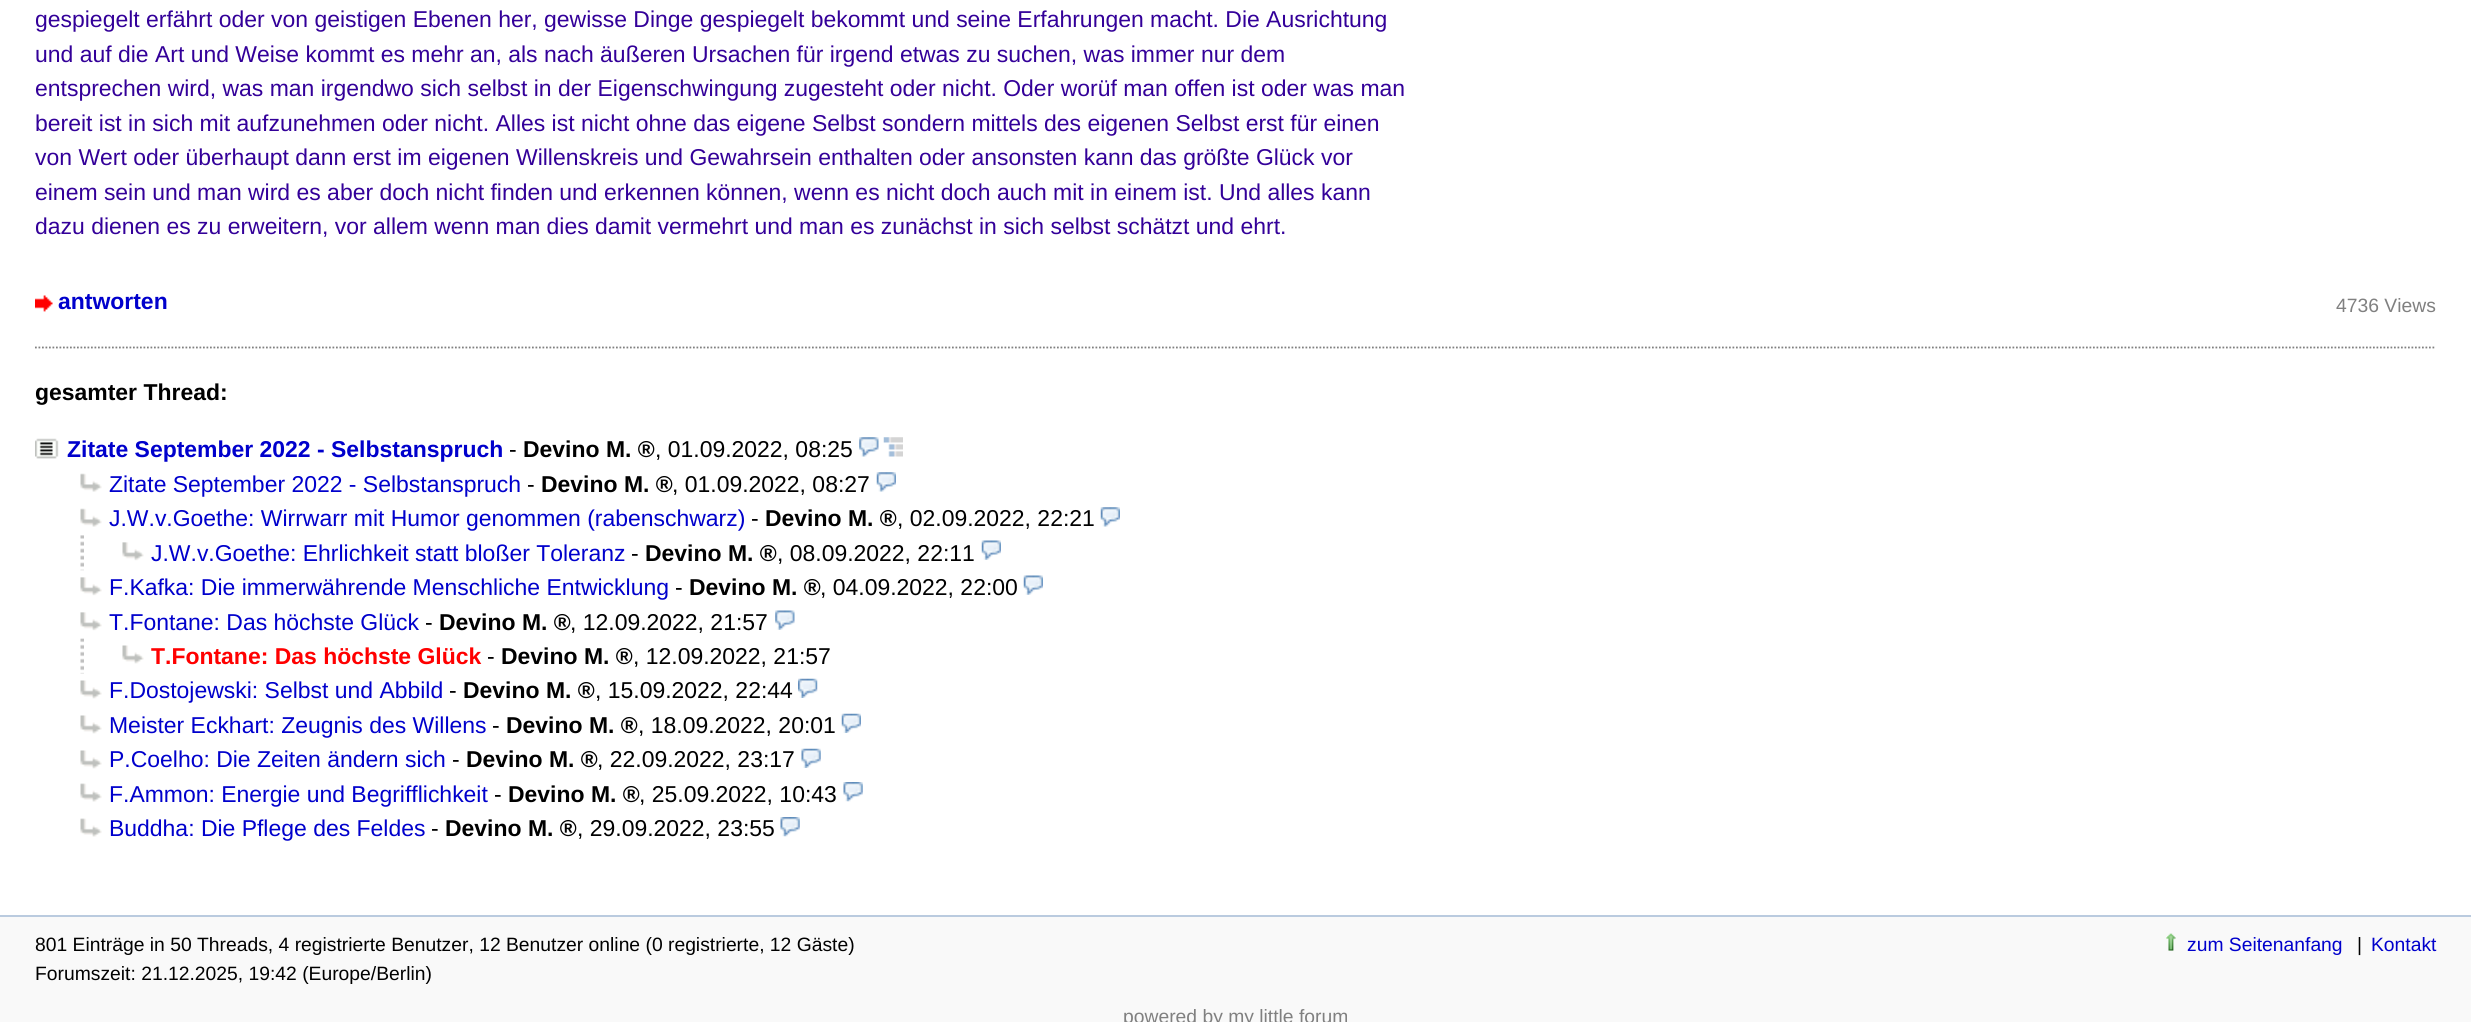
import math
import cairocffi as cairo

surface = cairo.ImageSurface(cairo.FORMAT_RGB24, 2471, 1022)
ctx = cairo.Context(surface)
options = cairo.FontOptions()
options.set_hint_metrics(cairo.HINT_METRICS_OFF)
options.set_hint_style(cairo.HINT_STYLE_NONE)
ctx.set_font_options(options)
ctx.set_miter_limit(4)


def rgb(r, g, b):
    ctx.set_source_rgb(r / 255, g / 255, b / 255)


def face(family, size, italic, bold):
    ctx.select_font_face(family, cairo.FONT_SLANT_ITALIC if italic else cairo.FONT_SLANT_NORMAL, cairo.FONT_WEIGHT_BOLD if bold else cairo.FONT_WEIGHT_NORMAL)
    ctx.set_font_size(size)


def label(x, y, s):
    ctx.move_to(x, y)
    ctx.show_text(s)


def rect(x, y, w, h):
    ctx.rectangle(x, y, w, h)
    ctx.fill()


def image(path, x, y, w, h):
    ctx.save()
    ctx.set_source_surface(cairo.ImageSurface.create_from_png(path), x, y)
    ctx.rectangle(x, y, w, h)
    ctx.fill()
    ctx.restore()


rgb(249, 249, 249)
ctx.paint()
rgb(255, 255, 255)
rect(0, 0, 2471, 915)
face('Liberation Sans', 22.95, 0, 0)
rgb(51, 0, 153)
label(35, 27, 'gespiegelt erfährt oder von geistigen Ebenen her, gewisse Dinge gespiegelt bekommt und seine Erfahrungen macht. Die Ausrichtung')
label(35, 62, 'und auf die Art und Weise kommt es mehr an, als nach äußeren Ursachen für irgend etwas zu suchen, was immer nur dem')
label(35, 96, 'entsprechen wird, was man irgendwo sich selbst in der Eigenschwingung zugesteht oder nicht. Oder worüf man offen ist oder was man')
label(35, 131, 'bereit ist in sich mit aufzunehmen oder nicht. Alles ist nicht ohne das eigene Selbst sondern mittels des eigenen Selbst erst für einen')
label(35, 165, 'von Wert oder überhaupt dann erst im eigenen Willenskreis und Gewahrsein enthalten oder ansonsten kann das größte Glück vor')
label(35, 200, 'einem sein und man wird es aber doch nicht finden und erkennen können, wenn es nicht doch auch mit in einem ist. Und alles kann')
label(35, 234, 'dazu dienen es zu erweitern, vor allem wenn man dies damit vermehrt und man es zunächst in sich selbst schätzt und ehrt.')
image('image0.png', 35, 295, 18, 17)
face('Liberation Sans', 22.95, 0, 1)
rgb(0, 0, 204)
label(58, 309, 'antworten')
face('Liberation Sans', 19.3, 0, 0)
rgb(128, 128, 128)
label(2336, 312, '4736 Views')
ctx.new_path()
ctx.move_to(35, 347.5)
ctx.line_to(2436, 347.5)
ctx.set_line_width(1.8)
ctx.set_dash([1.75, 1.75])
ctx.stroke()
face('Liberation Sans', 22.95, 0, 1)
rgb(0, 0, 0)
label(35, 400, 'gesamter Thread:')
image('image1.png', 35, 438, 24, 21)
rgb(0, 0, 204)
label(67, 457, 'Zitate September 2022 - Selbstanspruch')
face('Liberation Sans', 22.95, 0, 0)
rgb(0, 0, 0)
label(509, 457, '-')
face('Liberation Sans', 22.95, 0, 1)
label(523, 457, 'Devino M. ®')
face('Liberation Sans', 22.95, 0, 0)
label(655, 457, ', 01.09.2022, 08:25')
image('image2.png', 859, 437, 20, 20)
image('image3.png', 883, 437, 20, 20)
image('image4.png', 80, 473, 22, 19)
rgb(0, 0, 204)
label(109, 492, 'Zitate September 2022 - Selbstanspruch')
rgb(0, 0, 0)
label(527, 492, '-')
face('Liberation Sans', 22.95, 0, 1)
label(541, 492, 'Devino M. ®')
face('Liberation Sans', 22.95, 0, 0)
label(672, 492, ', 01.09.2022, 08:27')
image('image5.png', 876, 472, 20, 20)
image('image4.png', 80, 508, 22, 19)
rgb(0, 0, 204)
label(109, 526, 'J.W.v.Goethe: Wirrwarr mit Humor genommen (rabenschwarz)')
rgb(0, 0, 0)
label(751, 526, '-')
face('Liberation Sans', 22.95, 0, 1)
label(765, 526, 'Devino M. ®')
face('Liberation Sans', 22.95, 0, 0)
label(897, 526, ', 02.09.2022, 22:21')
image('image5.png', 1100, 507, 20, 20)
image('image6.png', 80, 535, 4, 36)
image('image7.png', 122, 542, 22, 19)
rgb(0, 0, 204)
label(151, 561, 'J.W.v.Goethe: Ehrlichkeit statt bloßer Toleranz')
rgb(0, 0, 0)
label(631, 561, '-')
face('Liberation Sans', 22.95, 0, 1)
label(645, 561, 'Devino M. ®')
face('Liberation Sans', 22.95, 0, 0)
label(777, 561, ', 08.09.2022, 22:11')
image('image8.png', 981, 540, 20, 20)
image('image9.png', 80, 577, 22, 19)
rgb(0, 0, 204)
label(109, 595, 'F.Kafka: Die immerwährende Menschliche Entwicklung')
rgb(0, 0, 0)
label(675, 595, '-')
face('Liberation Sans', 22.95, 0, 1)
label(689, 595, 'Devino M. ®')
face('Liberation Sans', 22.95, 0, 0)
label(820, 595, ', 04.09.2022, 22:00')
image('image10.png', 1023, 575, 20, 20)
image('image9.png', 80, 612, 22, 19)
rgb(0, 0, 204)
label(109, 630, 'T.Fontane: Das höchste Glück')
rgb(0, 0, 0)
label(425, 630, '-')
face('Liberation Sans', 22.95, 0, 1)
label(439, 630, 'Devino M. ®')
face('Liberation Sans', 22.95, 0, 0)
label(570, 630, ', 12.09.2022, 21:57')
image('image11.png', 775, 610, 20, 20)
image('image12.png', 80, 638, 4, 36)
image('image13.png', 122, 645, 22, 19)
face('Liberation Sans', 22.95, 0, 1)
rgb(255, 0, 0)
label(151, 664, 'T.Fontane: Das höchste Glück')
face('Liberation Sans', 22.95, 0, 0)
rgb(0, 0, 0)
label(487, 664, '-')
face('Liberation Sans', 22.95, 0, 1)
label(501, 664, 'Devino M. ®')
face('Liberation Sans', 22.95, 0, 0)
label(633, 664, ', 12.09.2022, 21:57')
image('image14.png', 80, 680, 22, 19)
rgb(0, 0, 204)
label(109, 698, 'F.Dostojewski: Selbst und Abbild')
rgb(0, 0, 0)
label(449, 698, '-')
face('Liberation Sans', 22.95, 0, 1)
label(463, 698, 'Devino M. ®')
face('Liberation Sans', 22.95, 0, 0)
label(595, 698, ', 15.09.2022, 22:44')
image('image15.png', 798, 678, 20, 20)
image('image14.png', 80, 715, 22, 19)
rgb(0, 0, 204)
label(109, 733, 'Meister Eckhart: Zeugnis des Willens')
rgb(0, 0, 0)
label(492, 733, '-')
face('Liberation Sans', 22.95, 0, 1)
label(506, 733, 'Devino M. ®')
face('Liberation Sans', 22.95, 0, 0)
label(638, 733, ', 18.09.2022, 20:01')
image('image16.png', 841, 713, 20, 20)
image('image14.png', 80, 750, 22, 19)
rgb(0, 0, 204)
label(109, 767, 'P.Coelho: Die Zeiten ändern sich')
rgb(0, 0, 0)
label(452, 767, '-')
face('Liberation Sans', 22.95, 0, 1)
label(466, 767, 'Devino M. ®')
face('Liberation Sans', 22.95, 0, 0)
label(597, 767, ', 22.09.2022, 23:17')
image('image17.png', 801, 748, 20, 20)
image('image18.png', 80, 783, 22, 19)
rgb(0, 0, 204)
label(109, 802, 'F.Ammon: Energie und Begrifflichkeit')
rgb(0, 0, 0)
label(494, 802, '-')
face('Liberation Sans', 22.95, 0, 1)
label(508, 802, 'Devino M. ®')
face('Liberation Sans', 22.95, 0, 0)
label(639, 802, ', 25.09.2022, 10:43')
image('image19.png', 843, 782, 20, 20)
image('image18.png', 80, 818, 22, 19)
rgb(0, 0, 204)
label(109, 836, 'Buddha: Die Pflege des Feldes')
rgb(0, 0, 0)
label(431, 836, '-')
face('Liberation Sans', 22.95, 0, 1)
label(445, 836, 'Devino M. ®')
face('Liberation Sans', 22.95, 0, 0)
label(577, 836, ', 29.09.2022, 23:55')
image('image20.png', 780, 817, 20, 20)
rgb(186, 203, 223)
rect(0, 915, 2471, 2)
face('Liberation Sans', 19.3, 0, 0)
rgb(0, 0, 0)
label(35, 951, '801 Einträge in 50 Threads, 4 registrierte Benutzer, 12 Benutzer online (0 registrierte, 12 Gäste)')
label(35, 980, 'Forumszeit: 21.12.2025, 19:42 (Europe/Berlin)')
image('image21.png', 2166, 933, 10, 18)
rgb(0, 0, 204)
label(2187, 951, 'zum Seitenanfang')
rgb(0, 0, 0)
label(2357, 951, '|')
rgb(0, 0, 204)
label(2371, 951, 'Kontakt')
rgb(128, 128, 128)
label(1123, 1023, 'powered by my little forum')
surface.write_to_png('render.png')
